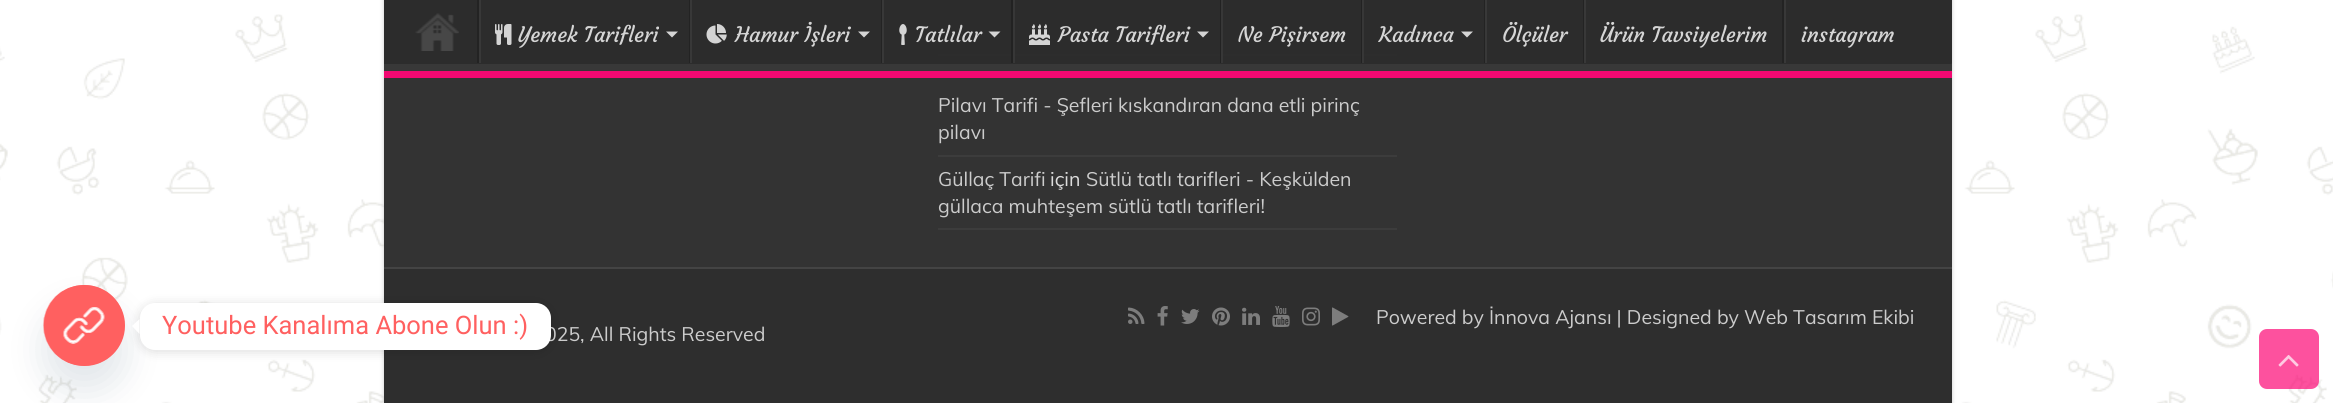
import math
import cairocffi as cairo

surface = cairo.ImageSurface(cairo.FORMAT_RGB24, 2333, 403)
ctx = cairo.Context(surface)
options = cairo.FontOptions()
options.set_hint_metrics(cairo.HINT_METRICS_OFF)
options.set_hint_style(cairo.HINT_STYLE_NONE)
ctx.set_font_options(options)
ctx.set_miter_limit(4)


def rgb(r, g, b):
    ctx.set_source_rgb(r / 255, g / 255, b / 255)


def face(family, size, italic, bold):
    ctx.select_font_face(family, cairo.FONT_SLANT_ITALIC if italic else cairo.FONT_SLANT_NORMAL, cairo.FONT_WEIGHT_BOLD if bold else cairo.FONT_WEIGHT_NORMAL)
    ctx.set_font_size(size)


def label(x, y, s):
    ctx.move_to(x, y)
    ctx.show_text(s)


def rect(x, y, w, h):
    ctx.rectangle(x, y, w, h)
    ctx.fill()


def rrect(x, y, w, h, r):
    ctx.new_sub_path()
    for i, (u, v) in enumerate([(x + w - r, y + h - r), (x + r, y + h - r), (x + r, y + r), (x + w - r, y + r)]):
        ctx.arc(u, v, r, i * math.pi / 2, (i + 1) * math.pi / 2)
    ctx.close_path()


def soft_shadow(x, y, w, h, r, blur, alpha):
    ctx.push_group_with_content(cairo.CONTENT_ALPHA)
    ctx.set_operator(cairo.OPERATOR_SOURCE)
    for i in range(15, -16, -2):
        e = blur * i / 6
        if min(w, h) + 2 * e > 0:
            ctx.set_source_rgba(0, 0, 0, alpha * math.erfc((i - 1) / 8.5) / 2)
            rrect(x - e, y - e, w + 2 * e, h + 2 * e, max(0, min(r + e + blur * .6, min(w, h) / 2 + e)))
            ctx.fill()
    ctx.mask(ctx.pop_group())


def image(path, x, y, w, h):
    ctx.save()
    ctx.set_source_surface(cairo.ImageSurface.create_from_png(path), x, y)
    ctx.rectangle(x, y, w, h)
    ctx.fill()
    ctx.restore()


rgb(255, 255, 255)
ctx.paint()
image('image0.png', 0, 14, 2333, 389)
rgb(73, 104, 126)
soft_shadow(44, 309, 81, 81, 40.5, 18, 0.16)
rgb(255, 96, 96)
ctx.arc(84.5, 325.5, 40.5, 0, 2 * math.pi)
ctx.fill()
image('image1.png', 43, 285, 82, 81)
rgb(202, 202, 202)
soft_shadow(384, -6, 1568, 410, 0, 2, 1)
rgb(46, 46, 46)
rect(384, 269, 1568, 134)
rgb(0, 0, 0)
soft_shadow(140, 305, 411, 46, 15, 6, 0.15)
face('Muli', 19.5, 0, 0)
rgb(204, 204, 204)
label(545, 341, '025, All Rights Reserved')
rgb(255, 255, 255)
rrect(140, 303, 411, 47, 15)
ctx.fill()
ctx.new_path()
ctx.move_to(139.5, 319)
ctx.line_to(139.5, 334)
ctx.line_to(132, 326)
ctx.close_path()
ctx.fill()
face('Roboto', 25.5, 0, 0)
rgb(255, 96, 96)
label(162, 334, 'Youtube Kanalıma Abone Olun :)')
rgb(51, 51, 51)
rect(384, 0, 1568, 267)
rgb(60, 60, 60)
rect(938, 54, 459, 2)
ctx.set_source_rgba(0.176, 0.176, 0.176, 0.95)
rect(384, 0, 1568, 78)
ctx.save()
ctx.rectangle(384, 0, 1568, 71)
ctx.clip()
ctx.set_source_rgba(0.224, 0.224, 0.224, 0.95)
ctx.set_fill_rule(cairo.FILL_RULE_EVEN_ODD)
ctx.new_path()
ctx.move_to(236, -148)
ctx.line_to(2100, -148)
ctx.line_to(2100, 219)
ctx.line_to(236, 219)
ctx.close_path()
ctx.move_to(382, -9)
ctx.line_to(1950, -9)
ctx.curve_to(1951, -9, 1952, -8, 1952, -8)
ctx.line_to(1952, 63)
ctx.curve_to(1952, 64, 1951, 64, 1950, 64)
ctx.line_to(382, 64)
ctx.curve_to(382, 64, 381, 64, 381, 63)
ctx.line_to(381, -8)
ctx.curve_to(381, -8, 382, -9, 382, -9)
ctx.close_path()
ctx.fill()
ctx.restore()
ctx.set_source_rgba(0.988, 0.031, 0.463, 0.95)
rect(384, 71, 1568, 7)
image('image2.png', 415, 13, 44, 38)
rgb(35, 35, 35)
rect(477, 0, 2, 63)
rgb(56, 56, 56)
rect(479, 0, 2, 63)
image('image3.png', 495, 24, 17, 21)
face('Courgette', 21, 0, 0)
rgb(213, 213, 213)
label(518, 42, 'Yemek Tarifleri')
ctx.new_path()
ctx.move_to(666, 31.5)
ctx.line_to(678, 31.5)
ctx.line_to(672, 37.5)
ctx.close_path()
ctx.fill()
rgb(35, 35, 35)
rect(689, 0, 1, 63)
rgb(56, 56, 56)
rect(690, 0, 2, 63)
image('image4.png', 706, 24, 21, 20)
rgb(213, 213, 213)
label(735, 42, 'Hamur İşleri')
ctx.new_path()
ctx.move_to(858, 31.5)
ctx.line_to(870, 31.5)
ctx.line_to(864, 37.5)
ctx.close_path()
ctx.fill()
rgb(35, 35, 35)
rect(881, 0, 1, 63)
rgb(56, 56, 56)
rect(882, 0, 2, 63)
image('image5.png', 899, 24, 8, 21)
rgb(213, 213, 213)
label(915, 42, 'Tatlılar')
ctx.set_source_rgba(0.867, 0.867, 0.867, 0.95)
ctx.new_path()
ctx.move_to(988.5, 31.5)
ctx.line_to(1000.5, 31.5)
ctx.line_to(994.5, 37.5)
ctx.close_path()
ctx.fill()
ctx.set_source_rgba(0.133, 0.133, 0.133, 0.95)
rect(1011, 0, 2, 63)
ctx.set_source_rgba(0.22, 0.22, 0.22, 0.95)
rect(1013, 0, 2, 63)
image('image6.png', 1029, 24, 21, 21)
rgb(213, 213, 213)
label(1058, 42, 'Pasta Tarifleri')
ctx.set_source_rgba(0.867, 0.867, 0.867, 0.95)
ctx.new_path()
ctx.move_to(1197, 31.5)
ctx.line_to(1209, 31.5)
ctx.line_to(1203, 37.5)
ctx.close_path()
ctx.fill()
ctx.set_source_rgba(0.133, 0.133, 0.133, 0.95)
rect(1220, 0, 2, 63)
ctx.set_source_rgba(0.22, 0.22, 0.22, 0.95)
rect(1221, 0, 2, 63)
rgb(213, 213, 213)
label(1238, 42, 'Ne Pişirsem')
ctx.set_source_rgba(0.133, 0.133, 0.133, 0.95)
rect(1361, 0, 2, 63)
ctx.set_source_rgba(0.22, 0.22, 0.22, 0.95)
rect(1362, 0, 2, 63)
rgb(213, 213, 213)
label(1379, 42, 'Kadınca')
ctx.new_path()
ctx.move_to(1461, 31.5)
ctx.line_to(1473, 31.5)
ctx.line_to(1467, 37.5)
ctx.close_path()
ctx.fill()
rgb(35, 35, 35)
rect(1484, 0, 1, 63)
rgb(56, 56, 56)
rect(1485, 0, 2, 63)
rgb(213, 213, 213)
label(1502, 42, 'Ölçüler')
rgb(35, 35, 35)
rect(1583, 0, 1, 63)
rgb(56, 56, 56)
rect(1584, 0, 2, 63)
rgb(213, 213, 213)
label(1600, 42, 'Ürün Tavsiyelerim')
rgb(35, 35, 35)
rect(1782, 0, 2, 63)
rgb(56, 56, 56)
rect(1784, 0, 2, 63)
rgb(213, 213, 213)
label(1801, 42, 'instagram')
rgb(60, 60, 60)
rect(938, 155, 459, 2)
face('Muli', 19.5, 0, 0)
rgb(204, 204, 204)
label(938, 112, 'Pilavı Tarifi - Şefleri kıskandıran dana etli pirinç')
label(938, 139, 'pilavı')
rgb(60, 60, 60)
rect(938, 228, 459, 2)
rgb(204, 204, 204)
label(938, 186, 'Güllaç Tarifi')
rgb(221, 221, 221)
label(1050, 186, 'için')
rgb(204, 204, 204)
label(1086, 186, 'Sütlü tatlı tarifleri - Keşkülden')
label(938, 213, 'güllaca muhteşem sütlü tatlı tarifleri!')
rgb(68, 68, 68)
rect(384, 267, 1568, 2)
image('image7.png', 1128, 307, 17, 17)
image('image8.png', 1157, 306, 11, 20)
image('image9.png', 1181, 309, 19, 15)
image('image10.png', 1212, 307, 18, 19)
image('image11.png', 1242, 307, 18, 18)
image('image12.png', 1272, 306, 18, 21)
image('image13.png', 1302, 307, 18, 19)
image('image14.png', 1332, 307, 17, 19)
rgb(204, 204, 204)
label(1376, 324, 'Powered by İnnova Ajansı | Designed by Web Tasarım Ekibi')
ctx.set_source_rgba(0.988, 0.031, 0.463, 0.7)
rrect(2259, 329, 60, 60, 8)
ctx.fill()
image('image15.png', 2278, 355, 21, 12)
surface.write_to_png('render.png')
